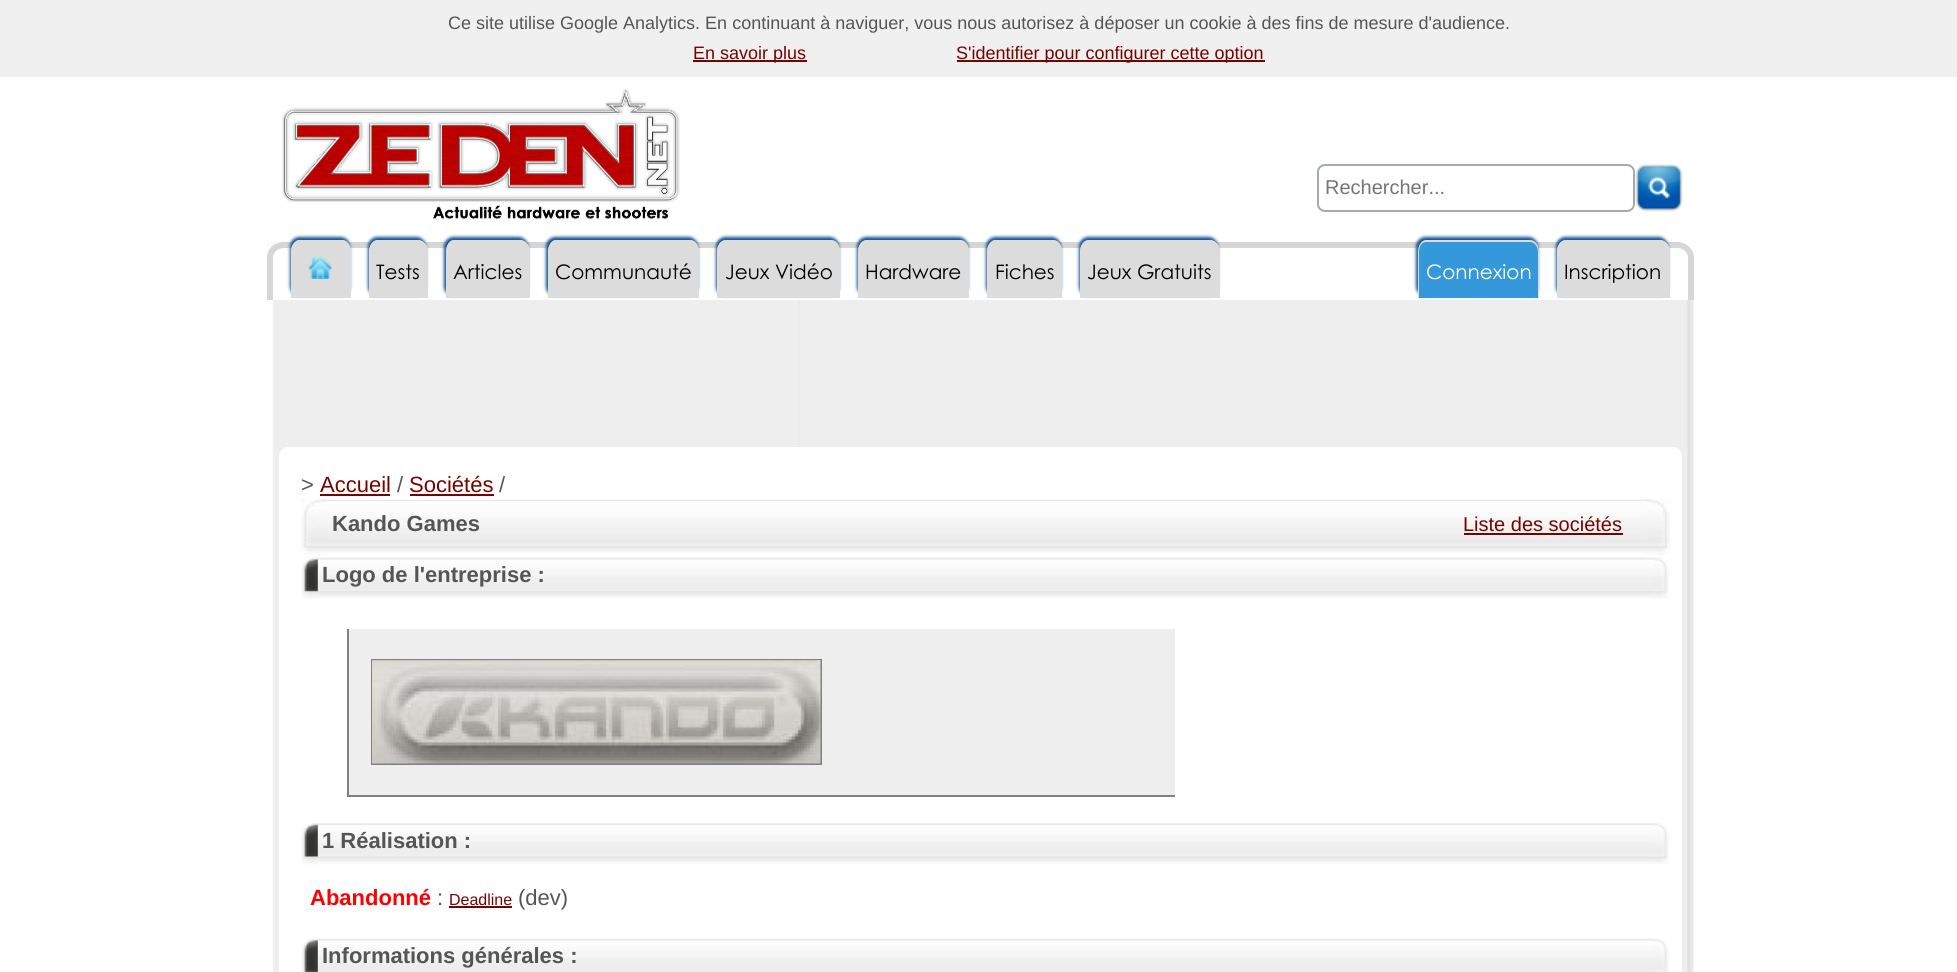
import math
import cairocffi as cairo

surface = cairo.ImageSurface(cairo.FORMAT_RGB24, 1957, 972)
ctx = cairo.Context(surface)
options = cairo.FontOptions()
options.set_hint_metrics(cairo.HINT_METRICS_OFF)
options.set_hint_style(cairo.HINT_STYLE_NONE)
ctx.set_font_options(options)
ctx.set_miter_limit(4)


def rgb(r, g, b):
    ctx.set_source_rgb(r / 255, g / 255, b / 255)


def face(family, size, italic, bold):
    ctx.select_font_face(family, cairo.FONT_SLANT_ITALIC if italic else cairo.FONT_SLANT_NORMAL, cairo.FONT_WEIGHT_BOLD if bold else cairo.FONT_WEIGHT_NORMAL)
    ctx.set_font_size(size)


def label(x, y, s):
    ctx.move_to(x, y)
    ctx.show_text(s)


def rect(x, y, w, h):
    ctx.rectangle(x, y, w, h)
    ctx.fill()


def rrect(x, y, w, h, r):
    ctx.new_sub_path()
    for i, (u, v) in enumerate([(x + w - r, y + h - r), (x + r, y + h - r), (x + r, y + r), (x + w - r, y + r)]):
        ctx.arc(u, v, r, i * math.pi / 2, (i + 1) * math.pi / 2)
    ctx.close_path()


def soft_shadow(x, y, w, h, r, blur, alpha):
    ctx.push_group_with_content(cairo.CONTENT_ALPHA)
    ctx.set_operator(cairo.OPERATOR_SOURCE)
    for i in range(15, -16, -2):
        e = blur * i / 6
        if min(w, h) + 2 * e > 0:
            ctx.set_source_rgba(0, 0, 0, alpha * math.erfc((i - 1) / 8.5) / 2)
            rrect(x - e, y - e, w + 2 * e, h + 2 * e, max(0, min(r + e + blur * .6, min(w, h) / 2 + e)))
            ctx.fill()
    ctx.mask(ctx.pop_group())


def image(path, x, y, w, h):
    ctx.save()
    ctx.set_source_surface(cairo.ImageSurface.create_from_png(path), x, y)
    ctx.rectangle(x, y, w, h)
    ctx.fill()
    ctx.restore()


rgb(255, 255, 255)
ctx.paint()
rgb(240, 240, 240)
rect(0, 0, 1957, 75)
rgb(238, 238, 238)
rect(0, 75, 1957, 2)
face('Liberation Sans', 18, 0, 0)
rgb(85, 85, 85)
label(448, 29, 'Ce site utilise Google Analytics. En continuant à naviguer, vous nous autorisez à déposer un cookie à des fins de mesure d\'audience.')
rgb(115, 4, 0)
rect(693, 60, 114, 2)
label(693, 59, 'En savoir plus')
rect(957, 60, 308, 2)
label(956, 59, 'S\'identifier pour configurer cette option')
image('image0.png', 282, 88, 398, 132)
rrect(1318, 165, 316, 46, 7)
rgb(165, 170, 174)
ctx.stroke()
face('Liberation Sans', 20, 0, 0)
rgb(117, 117, 117)
label(1325, 194, 'Rechercher...')
image('image1.png', 1635, 163, 48, 49)
image('image2.png', 267, 241, 21, 64)
rgb(255, 255, 255)
ctx.new_path()
ctx.move_to(284, 242)
ctx.line_to(1677, 242)
ctx.curve_to(1686.5, 242, 1694, 249.5, 1694, 259)
ctx.line_to(1694, 300)
ctx.line_to(267, 300)
ctx.line_to(267, 259)
ctx.curve_to(267, 249.5, 274.5, 242, 284, 242)
ctx.close_path()
ctx.fill()
rgb(214, 214, 214)
ctx.set_fill_rule(cairo.FILL_RULE_EVEN_ODD)
ctx.new_path()
ctx.move_to(284, 242)
ctx.line_to(1677, 242)
ctx.curve_to(1686, 242, 1694, 249, 1694, 258)
ctx.line_to(1694, 300)
ctx.line_to(267, 300)
ctx.line_to(267, 258)
ctx.curve_to(267, 249, 274, 242, 284, 242)
ctx.close_path()
ctx.move_to(284, 248)
ctx.line_to(1677, 248)
ctx.curve_to(1683, 248, 1688, 252, 1688, 258)
ctx.line_to(1688, 300)
ctx.line_to(273, 300)
ctx.line_to(273, 258)
ctx.curve_to(273, 252, 278, 248, 284, 248)
ctx.close_path()
ctx.fill()
rgb(23, 84, 147)
soft_shadow(290, 237, 60, 59, 9, 1.5, 1)
rgb(220, 220, 220)
ctx.set_fill_rule(cairo.FILL_RULE_WINDING)
ctx.new_path()
ctx.move_to(300, 240)
ctx.line_to(342, 240)
ctx.curve_to(347, 240, 351, 245, 351, 252)
ctx.line_to(351, 298)
ctx.line_to(291, 298)
ctx.line_to(291, 252)
ctx.curve_to(291, 245, 295, 240, 300, 240)
ctx.close_path()
ctx.fill()
ctx.set_fill_rule(cairo.FILL_RULE_EVEN_ODD)
ctx.new_path()
ctx.move_to(300, 240)
ctx.line_to(342, 240)
ctx.curve_to(347, 240, 351, 245, 351, 252)
ctx.line_to(351, 298)
ctx.line_to(291, 298)
ctx.line_to(291, 252)
ctx.curve_to(291, 245, 295, 240, 300, 240)
ctx.close_path()
ctx.move_to(300, 242)
ctx.line_to(342, 242)
ctx.curve_to(346, 242, 350, 246, 350, 252)
ctx.line_to(350, 298)
ctx.line_to(292, 298)
ctx.line_to(292, 252)
ctx.curve_to(292, 246, 296, 242, 300, 242)
ctx.close_path()
ctx.fill()
image('image3.png', 308, 256, 24, 23)
rgb(23, 84, 147)
soft_shadow(368, 237, 58, 59, 9, 1.5, 1)
rgb(220, 220, 220)
ctx.set_fill_rule(cairo.FILL_RULE_WINDING)
ctx.new_path()
ctx.move_to(378, 240)
ctx.line_to(418, 240)
ctx.curve_to(423, 240, 428, 245, 428, 252)
ctx.line_to(428, 298)
ctx.line_to(369, 298)
ctx.line_to(369, 252)
ctx.curve_to(369, 245, 373, 240, 378, 240)
ctx.close_path()
ctx.fill()
ctx.set_fill_rule(cairo.FILL_RULE_EVEN_ODD)
ctx.new_path()
ctx.move_to(378, 240)
ctx.line_to(418, 240)
ctx.curve_to(423, 240, 428, 245, 428, 252)
ctx.line_to(428, 298)
ctx.line_to(369, 298)
ctx.line_to(369, 252)
ctx.curve_to(369, 245, 373, 240, 378, 240)
ctx.close_path()
ctx.move_to(378, 242)
ctx.line_to(418, 242)
ctx.curve_to(423, 242, 426, 246, 426, 252)
ctx.line_to(426, 298)
ctx.line_to(370, 298)
ctx.line_to(370, 252)
ctx.curve_to(370, 246, 374, 242, 378, 242)
ctx.close_path()
ctx.fill()
face('Century Gothic', 20, 0, 0)
rgb(0, 0, 0)
label(376, 279, 'Tests')
rgb(23, 84, 147)
soft_shadow(444, 237, 84, 59, 9, 1.5, 1)
rgb(220, 220, 220)
ctx.set_fill_rule(cairo.FILL_RULE_WINDING)
ctx.new_path()
ctx.move_to(454, 240)
ctx.line_to(520, 240)
ctx.curve_to(525, 240, 530, 245, 530, 252)
ctx.line_to(530, 298)
ctx.line_to(446, 298)
ctx.line_to(446, 252)
ctx.curve_to(446, 245, 450, 240, 454, 240)
ctx.close_path()
ctx.fill()
ctx.set_fill_rule(cairo.FILL_RULE_EVEN_ODD)
ctx.new_path()
ctx.move_to(454, 240)
ctx.line_to(520, 240)
ctx.curve_to(525, 240, 530, 245, 530, 252)
ctx.line_to(530, 298)
ctx.line_to(446, 298)
ctx.line_to(446, 252)
ctx.curve_to(446, 245, 450, 240, 454, 240)
ctx.close_path()
ctx.move_to(454, 242)
ctx.line_to(520, 242)
ctx.curve_to(525, 242, 528, 246, 528, 252)
ctx.line_to(528, 298)
ctx.line_to(447, 298)
ctx.line_to(447, 252)
ctx.curve_to(447, 246, 450, 242, 454, 242)
ctx.close_path()
ctx.fill()
rgb(0, 0, 0)
label(453, 279, 'Articles')
rgb(23, 84, 147)
soft_shadow(546, 237, 152, 59, 9, 1.5, 1)
rgb(220, 220, 220)
ctx.set_fill_rule(cairo.FILL_RULE_WINDING)
ctx.new_path()
ctx.move_to(556, 240)
ctx.line_to(690, 240)
ctx.curve_to(695, 240, 699, 245, 699, 252)
ctx.line_to(699, 298)
ctx.line_to(548, 298)
ctx.line_to(548, 252)
ctx.curve_to(548, 245, 552, 240, 556, 240)
ctx.close_path()
ctx.fill()
ctx.set_fill_rule(cairo.FILL_RULE_EVEN_ODD)
ctx.new_path()
ctx.move_to(556, 240)
ctx.line_to(690, 240)
ctx.curve_to(695, 240, 699, 245, 699, 252)
ctx.line_to(699, 298)
ctx.line_to(548, 298)
ctx.line_to(548, 252)
ctx.curve_to(548, 245, 552, 240, 556, 240)
ctx.close_path()
ctx.move_to(556, 242)
ctx.line_to(690, 242)
ctx.curve_to(694, 242, 698, 246, 698, 252)
ctx.line_to(698, 298)
ctx.line_to(549, 298)
ctx.line_to(549, 252)
ctx.curve_to(549, 246, 552, 242, 556, 242)
ctx.close_path()
ctx.fill()
rgb(0, 0, 0)
label(555, 279, 'Communauté')
rgb(23, 84, 147)
soft_shadow(716, 237, 123, 59, 9, 1.5, 1)
rgb(220, 220, 220)
ctx.set_fill_rule(cairo.FILL_RULE_WINDING)
ctx.new_path()
ctx.move_to(726, 240)
ctx.line_to(831, 240)
ctx.curve_to(836, 240, 840, 245, 840, 252)
ctx.line_to(840, 298)
ctx.line_to(717, 298)
ctx.line_to(717, 252)
ctx.curve_to(717, 245, 721, 240, 726, 240)
ctx.close_path()
ctx.fill()
ctx.set_fill_rule(cairo.FILL_RULE_EVEN_ODD)
ctx.new_path()
ctx.move_to(726, 240)
ctx.line_to(831, 240)
ctx.curve_to(836, 240, 840, 245, 840, 252)
ctx.line_to(840, 298)
ctx.line_to(717, 298)
ctx.line_to(717, 252)
ctx.curve_to(717, 245, 721, 240, 726, 240)
ctx.close_path()
ctx.move_to(726, 242)
ctx.line_to(831, 242)
ctx.curve_to(835, 242, 838, 246, 838, 252)
ctx.line_to(838, 298)
ctx.line_to(718, 298)
ctx.line_to(718, 252)
ctx.curve_to(718, 246, 722, 242, 726, 242)
ctx.close_path()
ctx.fill()
rgb(0, 0, 0)
label(725, 279, 'Jeux Vidéo')
rgb(23, 84, 147)
soft_shadow(857, 237, 111, 59, 9, 1.5, 1)
rgb(220, 220, 220)
ctx.set_fill_rule(cairo.FILL_RULE_WINDING)
ctx.new_path()
ctx.move_to(867, 240)
ctx.line_to(960, 240)
ctx.curve_to(965, 240, 969, 245, 969, 252)
ctx.line_to(969, 298)
ctx.line_to(858, 298)
ctx.line_to(858, 252)
ctx.curve_to(858, 245, 862, 240, 867, 240)
ctx.close_path()
ctx.fill()
ctx.set_fill_rule(cairo.FILL_RULE_EVEN_ODD)
ctx.new_path()
ctx.move_to(867, 240)
ctx.line_to(960, 240)
ctx.curve_to(965, 240, 969, 245, 969, 252)
ctx.line_to(969, 298)
ctx.line_to(858, 298)
ctx.line_to(858, 252)
ctx.curve_to(858, 245, 862, 240, 867, 240)
ctx.close_path()
ctx.move_to(867, 242)
ctx.line_to(960, 242)
ctx.curve_to(964, 242, 968, 246, 968, 252)
ctx.line_to(968, 298)
ctx.line_to(860, 298)
ctx.line_to(860, 252)
ctx.curve_to(860, 246, 863, 242, 867, 242)
ctx.close_path()
ctx.fill()
rgb(0, 0, 0)
label(865, 279, 'Hardware')
rgb(23, 84, 147)
soft_shadow(986, 237, 75, 59, 9, 1.5, 1)
rgb(220, 220, 220)
ctx.set_fill_rule(cairo.FILL_RULE_WINDING)
ctx.new_path()
ctx.move_to(996, 240)
ctx.line_to(1053, 240)
ctx.curve_to(1058, 240, 1062, 245, 1062, 252)
ctx.line_to(1062, 298)
ctx.line_to(987, 298)
ctx.line_to(987, 252)
ctx.curve_to(987, 245, 991, 240, 996, 240)
ctx.close_path()
ctx.fill()
ctx.set_fill_rule(cairo.FILL_RULE_EVEN_ODD)
ctx.new_path()
ctx.move_to(996, 240)
ctx.line_to(1053, 240)
ctx.curve_to(1058, 240, 1062, 245, 1062, 252)
ctx.line_to(1062, 298)
ctx.line_to(987, 298)
ctx.line_to(987, 252)
ctx.curve_to(987, 245, 991, 240, 996, 240)
ctx.close_path()
ctx.move_to(996, 242)
ctx.line_to(1053, 242)
ctx.curve_to(1057, 242, 1060, 246, 1060, 252)
ctx.line_to(1060, 298)
ctx.line_to(988, 298)
ctx.line_to(988, 252)
ctx.curve_to(988, 246, 992, 242, 996, 242)
ctx.close_path()
ctx.fill()
rgb(0, 0, 0)
label(995, 279, 'Fiches')
rgb(23, 84, 147)
soft_shadow(1079, 237, 139, 59, 9, 1.5, 1)
rgb(220, 220, 220)
ctx.set_fill_rule(cairo.FILL_RULE_WINDING)
ctx.new_path()
ctx.move_to(1089, 240)
ctx.line_to(1210, 240)
ctx.curve_to(1215, 240, 1220, 245, 1220, 252)
ctx.line_to(1220, 298)
ctx.line_to(1080, 298)
ctx.line_to(1080, 252)
ctx.curve_to(1080, 245, 1084, 240, 1089, 240)
ctx.close_path()
ctx.fill()
ctx.set_fill_rule(cairo.FILL_RULE_EVEN_ODD)
ctx.new_path()
ctx.move_to(1089, 240)
ctx.line_to(1210, 240)
ctx.curve_to(1215, 240, 1220, 245, 1220, 252)
ctx.line_to(1220, 298)
ctx.line_to(1080, 298)
ctx.line_to(1080, 252)
ctx.curve_to(1080, 245, 1084, 240, 1089, 240)
ctx.close_path()
ctx.move_to(1089, 242)
ctx.line_to(1210, 242)
ctx.curve_to(1215, 242, 1218, 246, 1218, 252)
ctx.line_to(1218, 298)
ctx.line_to(1082, 298)
ctx.line_to(1082, 252)
ctx.curve_to(1082, 246, 1085, 242, 1089, 242)
ctx.close_path()
ctx.fill()
rgb(0, 0, 0)
label(1087, 279, 'Jeux Gratuits')
rgb(23, 84, 147)
soft_shadow(1416, 237, 122, 59, 9, 1.5, 1)
rgb(52, 152, 219)
ctx.set_fill_rule(cairo.FILL_RULE_WINDING)
ctx.new_path()
ctx.move_to(1426, 240)
ctx.line_to(1530, 240)
ctx.curve_to(1535, 240, 1539, 245, 1539, 252)
ctx.line_to(1539, 298)
ctx.line_to(1418, 298)
ctx.line_to(1418, 252)
ctx.curve_to(1418, 245, 1422, 240, 1426, 240)
ctx.close_path()
ctx.fill()
rgb(220, 220, 220)
ctx.set_fill_rule(cairo.FILL_RULE_EVEN_ODD)
ctx.new_path()
ctx.move_to(1426, 240)
ctx.line_to(1530, 240)
ctx.curve_to(1535, 240, 1539, 245, 1539, 252)
ctx.line_to(1539, 298)
ctx.line_to(1418, 298)
ctx.line_to(1418, 252)
ctx.curve_to(1418, 245, 1422, 240, 1426, 240)
ctx.close_path()
ctx.move_to(1426, 242)
ctx.line_to(1530, 242)
ctx.curve_to(1534, 242, 1538, 246, 1538, 252)
ctx.line_to(1538, 298)
ctx.line_to(1419, 298)
ctx.line_to(1419, 252)
ctx.curve_to(1419, 246, 1422, 242, 1426, 242)
ctx.close_path()
ctx.fill()
rgb(255, 255, 255)
label(1426, 279, 'Connexion')
rgb(23, 84, 147)
soft_shadow(1556, 237, 112, 59, 9, 1.5, 1)
rgb(220, 220, 220)
ctx.set_fill_rule(cairo.FILL_RULE_WINDING)
ctx.new_path()
ctx.move_to(1566, 240)
ctx.line_to(1660, 240)
ctx.curve_to(1665, 240, 1670, 245, 1670, 252)
ctx.line_to(1670, 298)
ctx.line_to(1557, 298)
ctx.line_to(1557, 252)
ctx.curve_to(1557, 245, 1561, 240, 1566, 240)
ctx.close_path()
ctx.fill()
ctx.set_fill_rule(cairo.FILL_RULE_EVEN_ODD)
ctx.new_path()
ctx.move_to(1566, 240)
ctx.line_to(1660, 240)
ctx.curve_to(1665, 240, 1670, 245, 1670, 252)
ctx.line_to(1670, 298)
ctx.line_to(1557, 298)
ctx.line_to(1557, 252)
ctx.curve_to(1557, 245, 1561, 240, 1566, 240)
ctx.close_path()
ctx.move_to(1566, 242)
ctx.line_to(1660, 242)
ctx.curve_to(1665, 242, 1668, 246, 1668, 252)
ctx.line_to(1668, 298)
ctx.line_to(1558, 298)
ctx.line_to(1558, 252)
ctx.curve_to(1558, 246, 1562, 242, 1566, 242)
ctx.close_path()
ctx.fill()
rgb(0, 0, 0)
label(1564, 279, 'Inscription')
image('image4.png', 272, 300, 1422, 672)
rgb(255, 255, 255)
rrect(279, 447, 1403, 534, 9)
ctx.fill()
face('Liberation Sans', 22, 0, 0)
rgb(85, 85, 85)
label(301, 492, '>')
rgb(115, 4, 0)
label(320, 492, 'Accueil')
rect(320, 494, 70, 2)
rgb(85, 85, 85)
label(397, 492, '/')
rgb(115, 4, 0)
label(409, 492, 'Sociétés')
rect(410, 494, 84, 2)
rgb(85, 85, 85)
label(499, 492, '/')
image('image5.png', 301, 499, 1369, 54)
image('image6.png', 301, 499, 25, 56)
face('Liberation Sans', 22, 0, 1)
label(332, 531, 'Kando Games')
face('Liberation Sans', 20, 0, 0)
rgb(115, 4, 0)
label(1463, 531, 'Liste des sociétés')
rect(1464, 533, 159, 2)
image('image7.png', 1645, 499, 25, 56)
image('image8.png', 301, 557, 19, 42)
image('image9.png', 1653, 557, 16, 42)
image('image10.png', 318, 557, 1335, 41)
face('Liberation Sans', 22, 0, 1)
rgb(85, 85, 85)
label(322, 582, 'Logo de l\'entreprise :')
rgb(238, 238, 238)
rect(349, 629, 826, 166)
rgb(128, 128, 128)
rect(347, 795, 828, 2)
rect(347, 629, 2, 168)
ctx.rectangle(372, 660, 449, 104)
ctx.stroke()
image('image11.png', 372, 660, 449, 104)
image('image12.png', 301, 823, 19, 42)
image('image13.png', 1653, 823, 16, 41)
image('image14.png', 318, 823, 1335, 41)
rgb(85, 85, 85)
label(322, 848, '1 Réalisation :')
rgb(255, 0, 0)
label(310, 905, 'Abandonné')
face('Liberation Sans', 22, 0, 0)
rgb(85, 85, 85)
label(437, 905, ':')
face('Liberation Sans', 16, 0, 0)
rgb(115, 4, 0)
label(449, 905, 'Deadline')
rect(449, 906, 63, 2)
face('Liberation Sans', 22, 0, 0)
rgb(85, 85, 85)
label(518, 905, '(dev)')
image('image15.png', 301, 938, 17, 34)
image('image16.png', 1653, 938, 16, 34)
image('image17.png', 318, 938, 1335, 34)
face('Liberation Sans', 22, 0, 1)
label(322, 963, 'Informations générales :')
surface.write_to_png('render.png')
